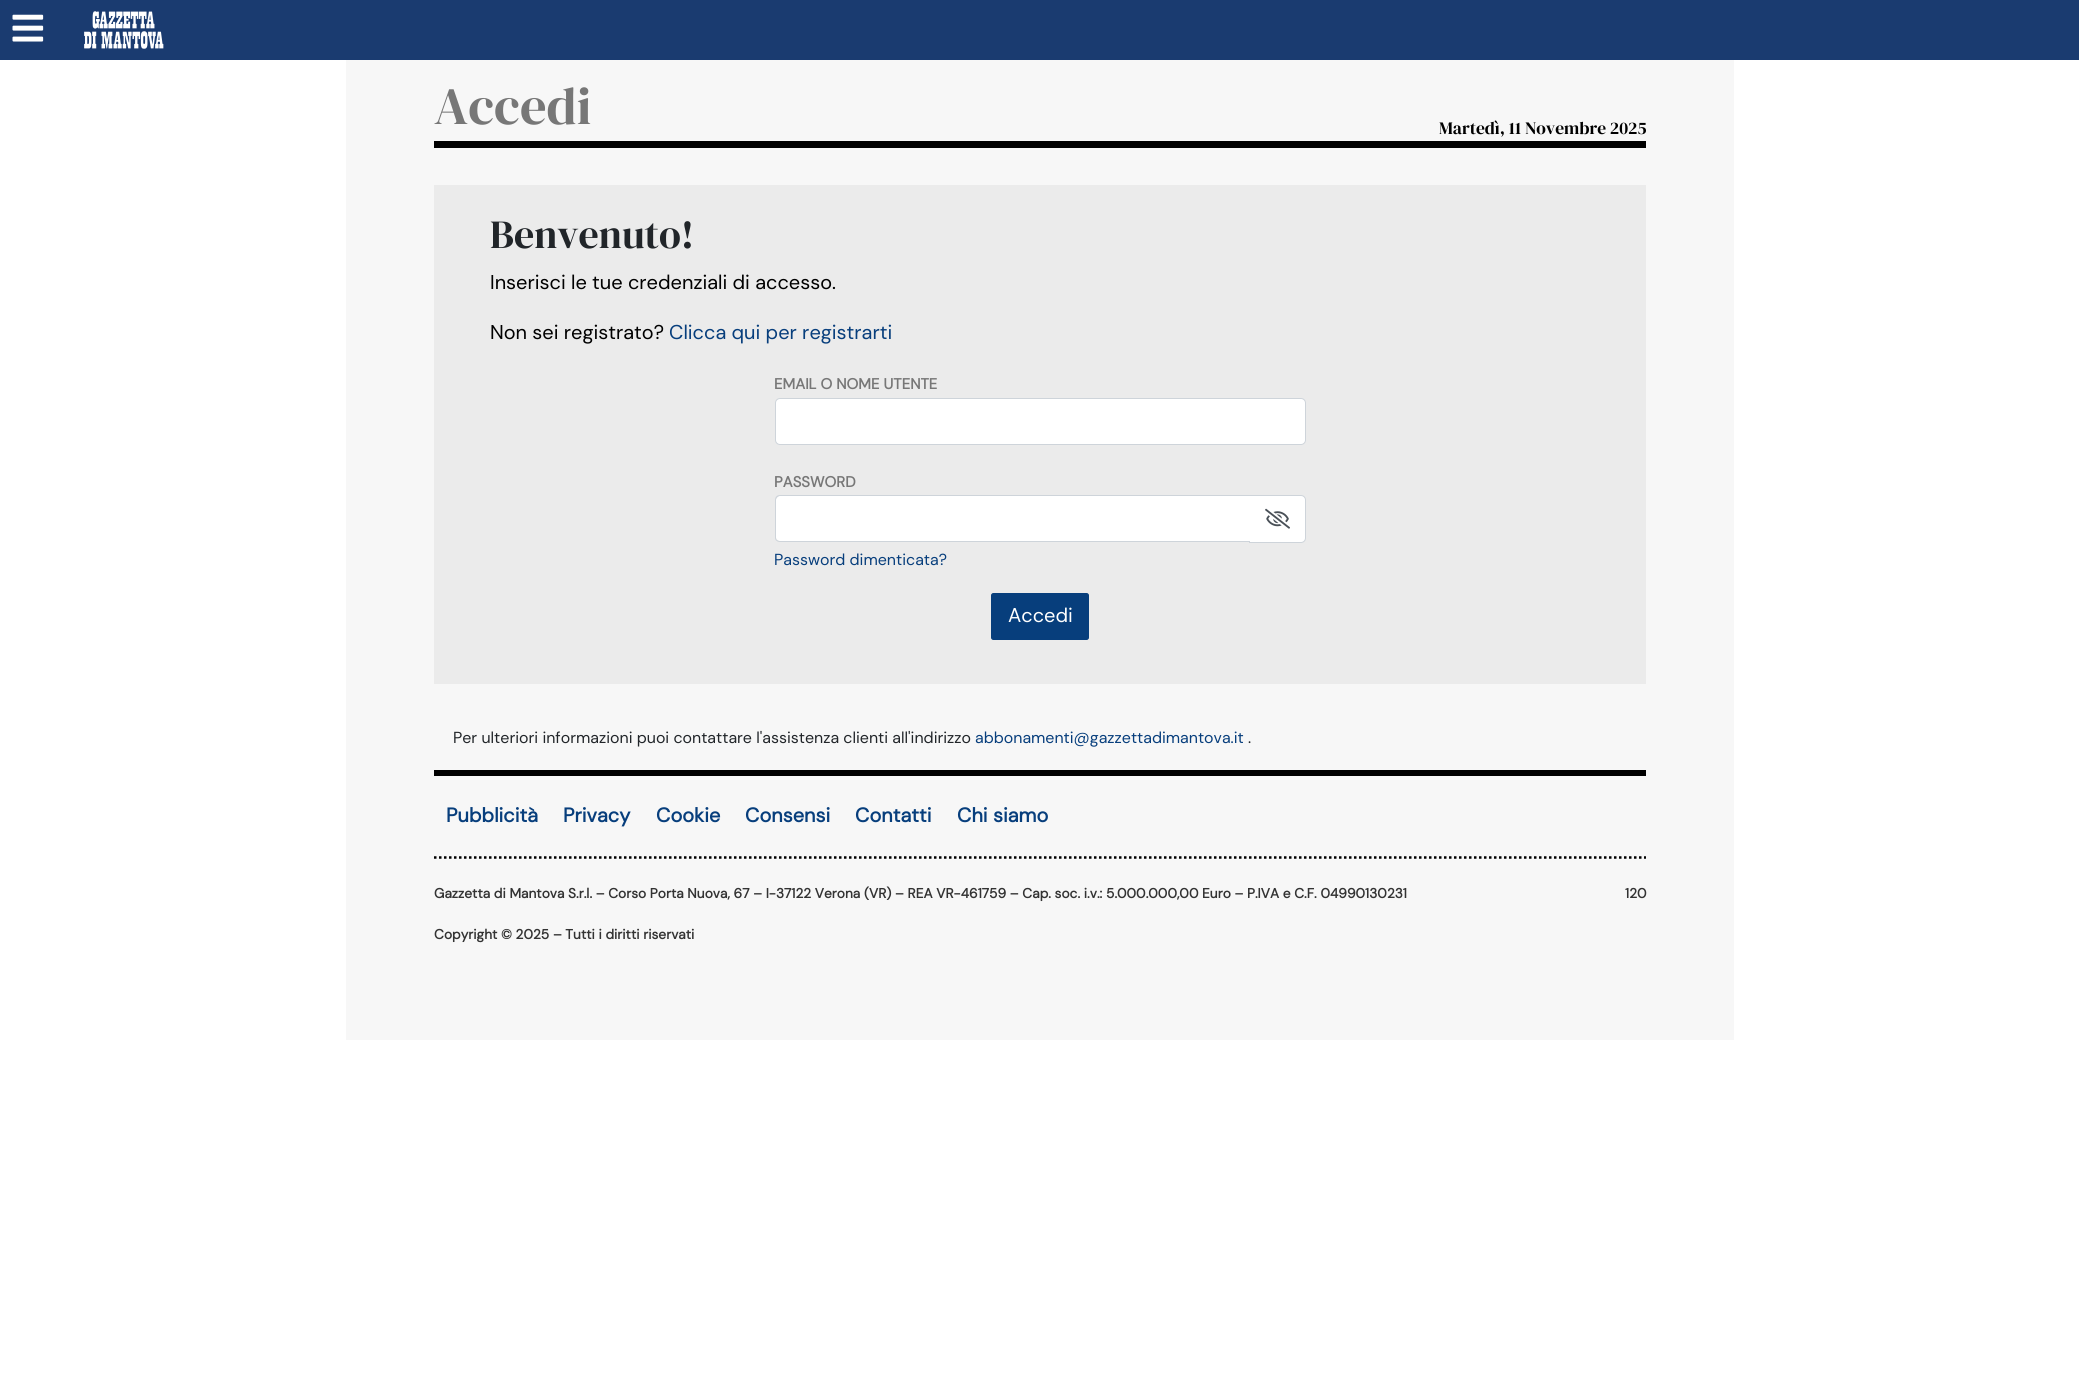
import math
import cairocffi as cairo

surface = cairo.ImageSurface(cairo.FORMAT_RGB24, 2079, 1384)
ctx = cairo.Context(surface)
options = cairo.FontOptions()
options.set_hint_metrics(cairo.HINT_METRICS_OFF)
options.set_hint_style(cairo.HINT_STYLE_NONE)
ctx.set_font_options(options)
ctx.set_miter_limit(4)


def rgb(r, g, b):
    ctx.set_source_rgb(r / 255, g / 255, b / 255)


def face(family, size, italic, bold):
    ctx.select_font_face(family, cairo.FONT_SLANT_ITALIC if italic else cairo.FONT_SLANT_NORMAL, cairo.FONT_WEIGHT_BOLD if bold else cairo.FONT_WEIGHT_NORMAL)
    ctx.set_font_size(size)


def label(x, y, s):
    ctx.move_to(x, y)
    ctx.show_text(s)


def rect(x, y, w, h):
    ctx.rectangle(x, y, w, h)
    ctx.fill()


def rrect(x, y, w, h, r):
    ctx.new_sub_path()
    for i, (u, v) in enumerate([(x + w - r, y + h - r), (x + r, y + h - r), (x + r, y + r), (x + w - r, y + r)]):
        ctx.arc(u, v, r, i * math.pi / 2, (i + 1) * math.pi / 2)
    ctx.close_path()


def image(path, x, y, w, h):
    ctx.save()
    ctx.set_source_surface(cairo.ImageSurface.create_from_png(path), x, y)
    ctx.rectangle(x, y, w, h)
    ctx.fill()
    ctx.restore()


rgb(255, 255, 255)
ctx.paint()
rgb(26, 59, 112)
rect(0, 0, 2079, 60)
image('image0.png', 12, 14, 32, 28)
image('image1.png', 84, 11, 80, 38)
rgb(247, 247, 247)
rect(346, 60, 1388, 980)
rgb(0, 0, 0)
rect(434, 141, 1212, 7)
face('DM Serif Display', 52.5, 0, 0)
rgb(119, 119, 119)
label(434, 124, 'Accedi')
face('DM Serif Display', 17.5, 0, 0)
rgb(0, 0, 0)
label(1439, 134, 'Martedì, 11 Novembre 2025')
ctx.set_source_rgba(0, 0, 0, 0.05)
rect(434, 185, 1212, 499)
face('DM Serif Display', 40, 0, 0)
rgb(33, 37, 41)
label(490, 248, 'Benvenuto!')
face('DM Sans', 20, 0, 0)
rgb(0, 0, 0)
label(490, 289, 'Inserisci le tue credenziali di accesso.')
label(490, 339, 'Non sei registrato?')
rgb(7, 62, 124)
label(669, 339, 'Clicca qui per registrarti')
face('DM Sans', 15, 0, 1)
rgb(119, 119, 119)
label(774, 389, 'EMAIL O NOME UTENTE')
rgb(255, 255, 255)
rrect(775.5, 398.5, 530, 46, 4.5)
ctx.fill_preserve()
rgb(206, 212, 218)
ctx.set_line_width(1)
ctx.stroke()
rgb(119, 119, 119)
label(774, 487, 'PASSWORD')
rgb(255, 255, 255)
ctx.new_path()
ctx.move_to(1249.5, 495.5)
ctx.line_to(1301, 495.5)
ctx.curve_to(1303.5, 495.5, 1305.5, 497.5, 1305.5, 500)
ctx.line_to(1305.5, 538)
ctx.curve_to(1305.5, 540.5, 1303.5, 542.5, 1301, 542.5)
ctx.line_to(1249.5, 542.5)
ctx.close_path()
ctx.fill_preserve()
rgb(206, 212, 218)
ctx.stroke()
rgb(255, 255, 255)
ctx.new_path()
ctx.move_to(780, 496)
ctx.line_to(1250, 496)
ctx.line_to(1250, 541)
ctx.line_to(780, 541)
ctx.curve_to(778, 541, 776, 539, 776, 537)
ctx.line_to(776, 500)
ctx.curve_to(776, 498, 778, 496, 780, 496)
ctx.close_path()
ctx.fill()
rgb(206, 212, 218)
ctx.set_fill_rule(cairo.FILL_RULE_EVEN_ODD)
ctx.new_path()
ctx.move_to(780, 495)
ctx.line_to(1250, 495)
ctx.line_to(1250, 542)
ctx.line_to(780, 542)
ctx.curve_to(777, 542, 775, 540, 775, 538)
ctx.line_to(775, 500)
ctx.curve_to(775, 497, 777, 495, 780, 495)
ctx.close_path()
ctx.move_to(780, 496)
ctx.line_to(1250, 496)
ctx.line_to(1250, 541)
ctx.line_to(780, 541)
ctx.curve_to(778, 541, 776, 540, 776, 538)
ctx.line_to(776, 500)
ctx.curve_to(776, 498, 778, 496, 780, 496)
ctx.close_path()
ctx.fill()
image('image2.png', 1265, 508, 25, 21)
face('DM Sans', 16, 0, 0)
rgb(7, 62, 124)
label(774, 565, 'Password dimenticata?')
rrect(991.5, 593.5, 97, 46, 2)
ctx.fill_preserve()
ctx.stroke()
face('DM Sans', 20, 0, 0)
rgb(255, 255, 255)
label(1008, 622, 'Accedi')
face('DM Sans', 16, 0, 0)
rgb(33, 37, 41)
label(453, 743, 'Per ulteriori informazioni puoi contattare l\'assistenza clienti all\'indirizzo')
rgb(7, 62, 124)
label(975, 743, 'abbonamenti@gazzettadimantova.it')
rgb(33, 37, 41)
label(1248, 743, '.')
rgb(0, 0, 0)
rect(434, 770, 1212, 6)
ctx.new_path()
ctx.move_to(434, 857.5)
ctx.line_to(1646, 857.5)
ctx.set_line_width(2.5)
ctx.set_dash([2.5, 2.5])
ctx.stroke()
face('DM Sans', 20, 0, 1)
rgb(7, 62, 124)
label(446, 822, 'Pubblicità')
label(563, 822, 'Privacy')
label(656, 822, 'Cookie')
label(745, 822, 'Consensi')
label(855, 822, 'Contatti')
label(957, 822, 'Chi siamo')
face('DM Sans', 13.75, 0, 1)
rgb(51, 51, 51)
label(434, 898, 'Gazzetta di Mantova S.r.l. – Corso Porta Nuova, 67 – I-37122 Verona (VR) – REA VR-461759 – Cap. soc. i.v.: 5.000.000,00 Euro – P.IVA e C.F. 04990130231')
label(1625, 898, '120')
label(434, 939, 'Copyright © 2025 – Tutti i diritti riservati')
surface.write_to_png('render.png')
